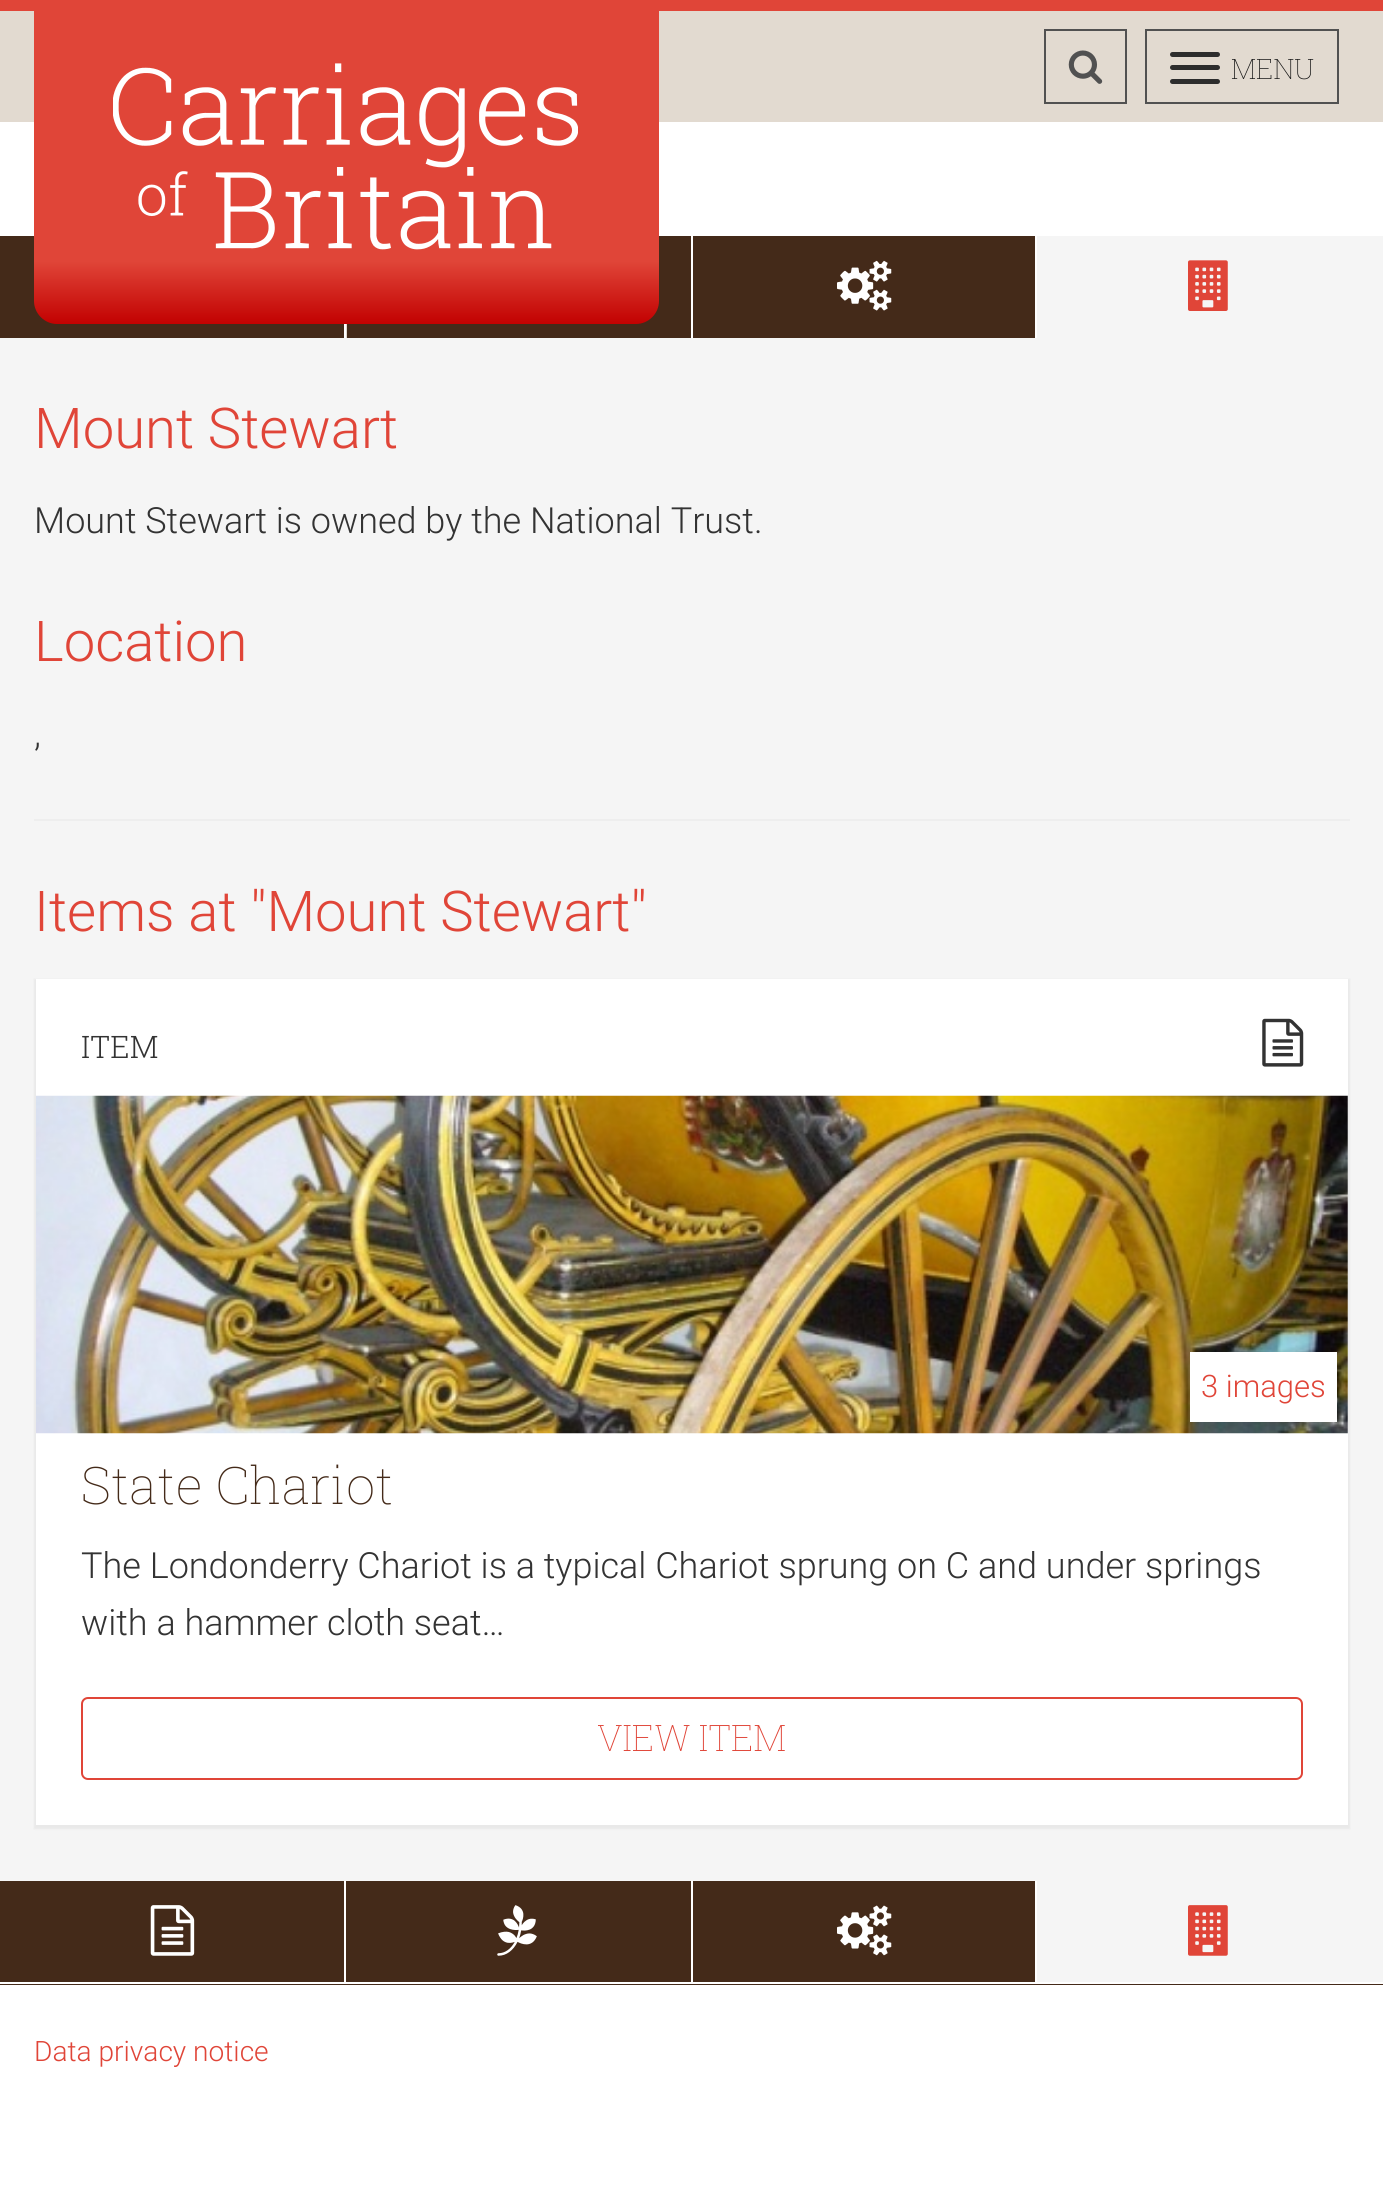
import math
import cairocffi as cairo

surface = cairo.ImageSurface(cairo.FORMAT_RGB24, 1383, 2200)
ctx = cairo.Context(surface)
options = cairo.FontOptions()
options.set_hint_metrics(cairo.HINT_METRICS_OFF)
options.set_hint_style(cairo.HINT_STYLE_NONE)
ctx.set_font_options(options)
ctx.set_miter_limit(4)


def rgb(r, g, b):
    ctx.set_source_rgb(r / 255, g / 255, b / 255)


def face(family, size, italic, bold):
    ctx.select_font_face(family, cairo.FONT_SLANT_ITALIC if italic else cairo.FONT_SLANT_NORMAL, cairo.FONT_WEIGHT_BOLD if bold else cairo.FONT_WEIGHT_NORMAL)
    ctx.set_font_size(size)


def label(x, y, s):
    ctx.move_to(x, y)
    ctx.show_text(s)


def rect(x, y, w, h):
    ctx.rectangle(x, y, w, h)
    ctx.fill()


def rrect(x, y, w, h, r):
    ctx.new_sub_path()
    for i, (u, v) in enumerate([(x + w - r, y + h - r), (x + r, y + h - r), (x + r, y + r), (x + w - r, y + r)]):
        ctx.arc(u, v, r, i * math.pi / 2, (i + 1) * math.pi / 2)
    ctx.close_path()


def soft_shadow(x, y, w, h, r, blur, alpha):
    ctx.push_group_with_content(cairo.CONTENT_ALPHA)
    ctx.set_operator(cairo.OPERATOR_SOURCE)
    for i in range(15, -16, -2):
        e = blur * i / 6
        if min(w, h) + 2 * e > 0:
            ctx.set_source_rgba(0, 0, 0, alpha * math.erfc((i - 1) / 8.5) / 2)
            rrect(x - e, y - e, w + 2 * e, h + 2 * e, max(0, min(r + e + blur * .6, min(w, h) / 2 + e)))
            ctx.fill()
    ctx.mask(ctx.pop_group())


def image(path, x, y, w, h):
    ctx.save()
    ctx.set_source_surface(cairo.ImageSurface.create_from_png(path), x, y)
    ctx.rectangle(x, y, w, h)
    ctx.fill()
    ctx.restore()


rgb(245, 245, 245)
ctx.paint()
rgb(226, 218, 208)
rect(0, 11, 1383, 111)
rgb(224, 69, 56)
rect(0, 0, 1383, 11)
rgb(255, 255, 255)
rect(0, 122, 1383, 114)
rgb(68, 42, 25)
rect(0, 236, 344, 102)
rect(347, 236, 344, 102)
gradient = cairo.LinearGradient(347, 11, 347, 324)
gradient.add_color_stop_rgba(0, 0.878, 0.271, 0.22, 1)
gradient.add_color_stop_rgba(0.8, 0.878, 0.271, 0.22, 1)
gradient.add_color_stop_rgba(1, 0.761, 0.004, 0.004, 1)
ctx.set_source(gradient)
ctx.new_path()
ctx.move_to(34, 11)
ctx.line_to(659, 11)
ctx.line_to(659, 301)
ctx.curve_to(659, 313.5, 648.5, 324, 636, 324)
ctx.line_to(57, 324)
ctx.curve_to(44.5, 324, 34, 313.5, 34, 301)
ctx.close_path()
ctx.fill()
image('image0.png', 113, 63, 465, 187)
ctx.rectangle(1045, 30, 81, 73)
rgb(81, 81, 81)
ctx.stroke()
image('image1.png', 1068, 50, 35, 34)
ctx.rectangle(1146, 30, 192, 73)
ctx.stroke()
rgb(45, 45, 45)
rrect(1170, 52, 50, 5, 2.5)
ctx.fill()
rrect(1170, 65, 50, 5, 2.5)
ctx.fill()
rrect(1170, 79, 50, 5, 2.5)
ctx.fill()
face('Roboto Slab Thin', 28.1, 0, 0)
rgb(20, 20, 20)
label(1231, 79, 'MENU')
rgb(226, 218, 208)
rect(346, 324, 1, 14)
rgb(255, 255, 255)
rect(344, 324, 2, 14)
rect(691, 236, 2, 102)
rect(1035, 236, 2, 102)
rgb(68, 42, 25)
rect(693, 236, 342, 102)
image('image2.png', 837, 260, 55, 51)
image('image3.png', 1188, 260, 40, 51)
face('Roboto Light', 56.25, 0, 0)
rgb(224, 69, 56)
label(34, 448, 'Mount Stewart')
face('Roboto Light', 36, 0, 0)
rgb(51, 51, 51)
label(34, 533, 'Mount Stewart is owned by the National Trust.')
face('Roboto Light', 56.25, 0, 0)
rgb(224, 69, 56)
label(34, 661, 'Location')
face('Roboto Light', 36, 0, 0)
rgb(51, 51, 51)
label(34, 746, ',')
rgb(238, 238, 238)
rect(34, 819, 1316, 2)
face('Roboto Light', 56.25, 0, 0)
rgb(224, 69, 56)
label(34, 931, 'Items at "Mount Stewart"')
rgb(0, 0, 0)
soft_shadow(34, 979, 1316, 850, 0, 1, 0.05)
rgb(255, 255, 255)
rect(36, 979, 1312, 846)
face('Roboto Slab Light', 31, 0, 0)
rgb(51, 51, 51)
label(81, 1058, 'ITEM')
image('image4.png', 1262, 1018, 42, 49)
image('image5.png', 36, 1095, 1312, 339)
rgb(255, 255, 255)
rect(1190, 1352, 147, 70)
face('Roboto Light', 31, 0, 0)
rgb(224, 69, 56)
label(1201, 1397, '3 images')
face('Roboto Slab Thin', 51.75, 0, 0)
rgb(68, 42, 25)
label(81, 1504, 'State Chariot')
face('Roboto Light', 36, 0, 0)
rgb(51, 51, 51)
label(81, 1578, 'The Londonderry Chariot is a typical Chariot sprung on C and under springs')
label(81, 1635, 'with a hammer cloth seat…')
rrect(82, 1698, 1220, 81, 6)
rgb(224, 69, 56)
ctx.stroke()
face('Roboto Slab Thin', 36.5, 0, 0)
label(597, 1751, 'VIEW ITEM')
rgb(68, 42, 25)
rect(0, 1881, 1383, 104)
rgb(255, 255, 255)
rect(0, 1982, 1383, 2)
rect(344, 1881, 2, 101)
image('image6.png', 150, 1905, 45, 51)
rect(691, 1881, 2, 101)
image('image7.png', 497, 1905, 40, 51)
rect(1035, 1881, 2, 101)
image('image8.png', 837, 1905, 55, 51)
rgb(245, 245, 245)
rect(1037, 1881, 346, 101)
image('image9.png', 1188, 1905, 40, 51)
rgb(255, 255, 255)
rect(0, 1985, 1383, 215)
face('Roboto Light', 28.1, 0, 0)
rgb(224, 69, 56)
label(34, 2061, 'Data privacy notice')
surface.write_to_png('render.png')
